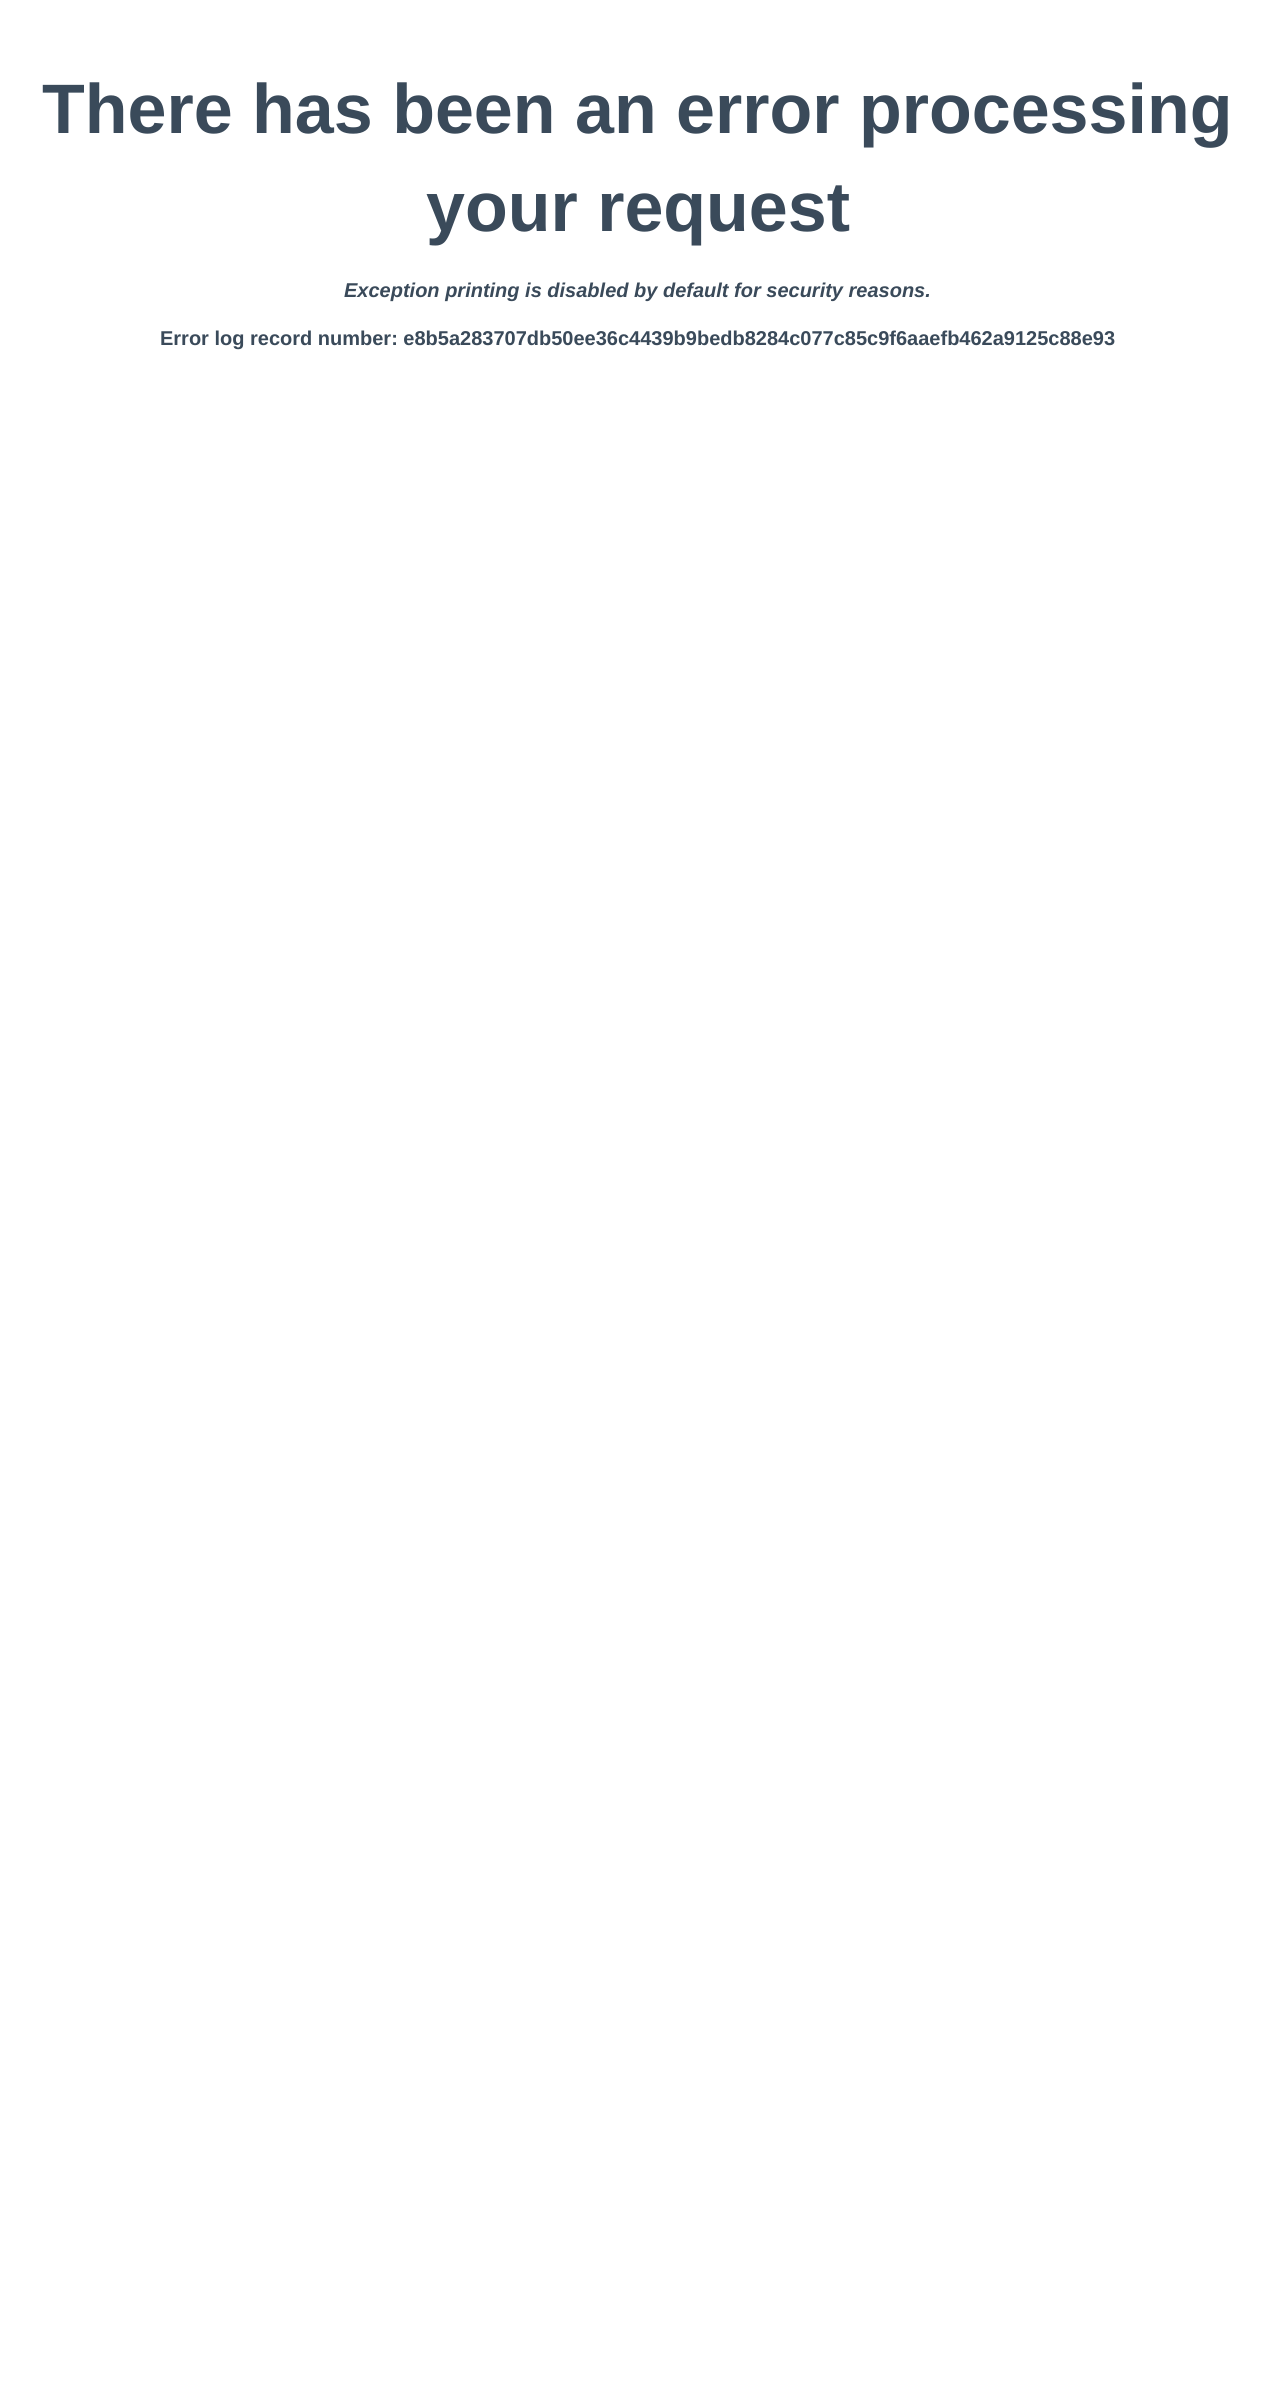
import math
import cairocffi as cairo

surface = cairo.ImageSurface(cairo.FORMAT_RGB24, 1275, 2388)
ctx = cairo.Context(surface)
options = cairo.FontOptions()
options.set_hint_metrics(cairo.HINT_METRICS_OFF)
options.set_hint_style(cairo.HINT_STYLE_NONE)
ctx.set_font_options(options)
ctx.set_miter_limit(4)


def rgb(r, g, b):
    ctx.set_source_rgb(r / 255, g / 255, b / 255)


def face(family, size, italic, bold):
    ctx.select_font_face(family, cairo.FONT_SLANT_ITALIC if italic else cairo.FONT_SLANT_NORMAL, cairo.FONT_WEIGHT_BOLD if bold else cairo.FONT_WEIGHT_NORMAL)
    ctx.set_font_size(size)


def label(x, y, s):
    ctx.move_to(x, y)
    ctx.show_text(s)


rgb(255, 255, 255)
ctx.paint()
face('Liberation Sans', 70, 0, 1)
rgb(58, 74, 90)
label(42, 133, 'There has been an error processing')
label(426, 231, 'your request')
face('Liberation Sans', 20, 1, 1)
label(344, 297, 'Exception printing is disabled by default for security reasons.')
face('Liberation Sans', 20, 0, 1)
label(160, 345, 'Error log record number: e8b5a283707db50ee36c4439b9bedb8284c077c85c9f6aaefb462a9125c88e93')
surface.write_to_png('render.png')
